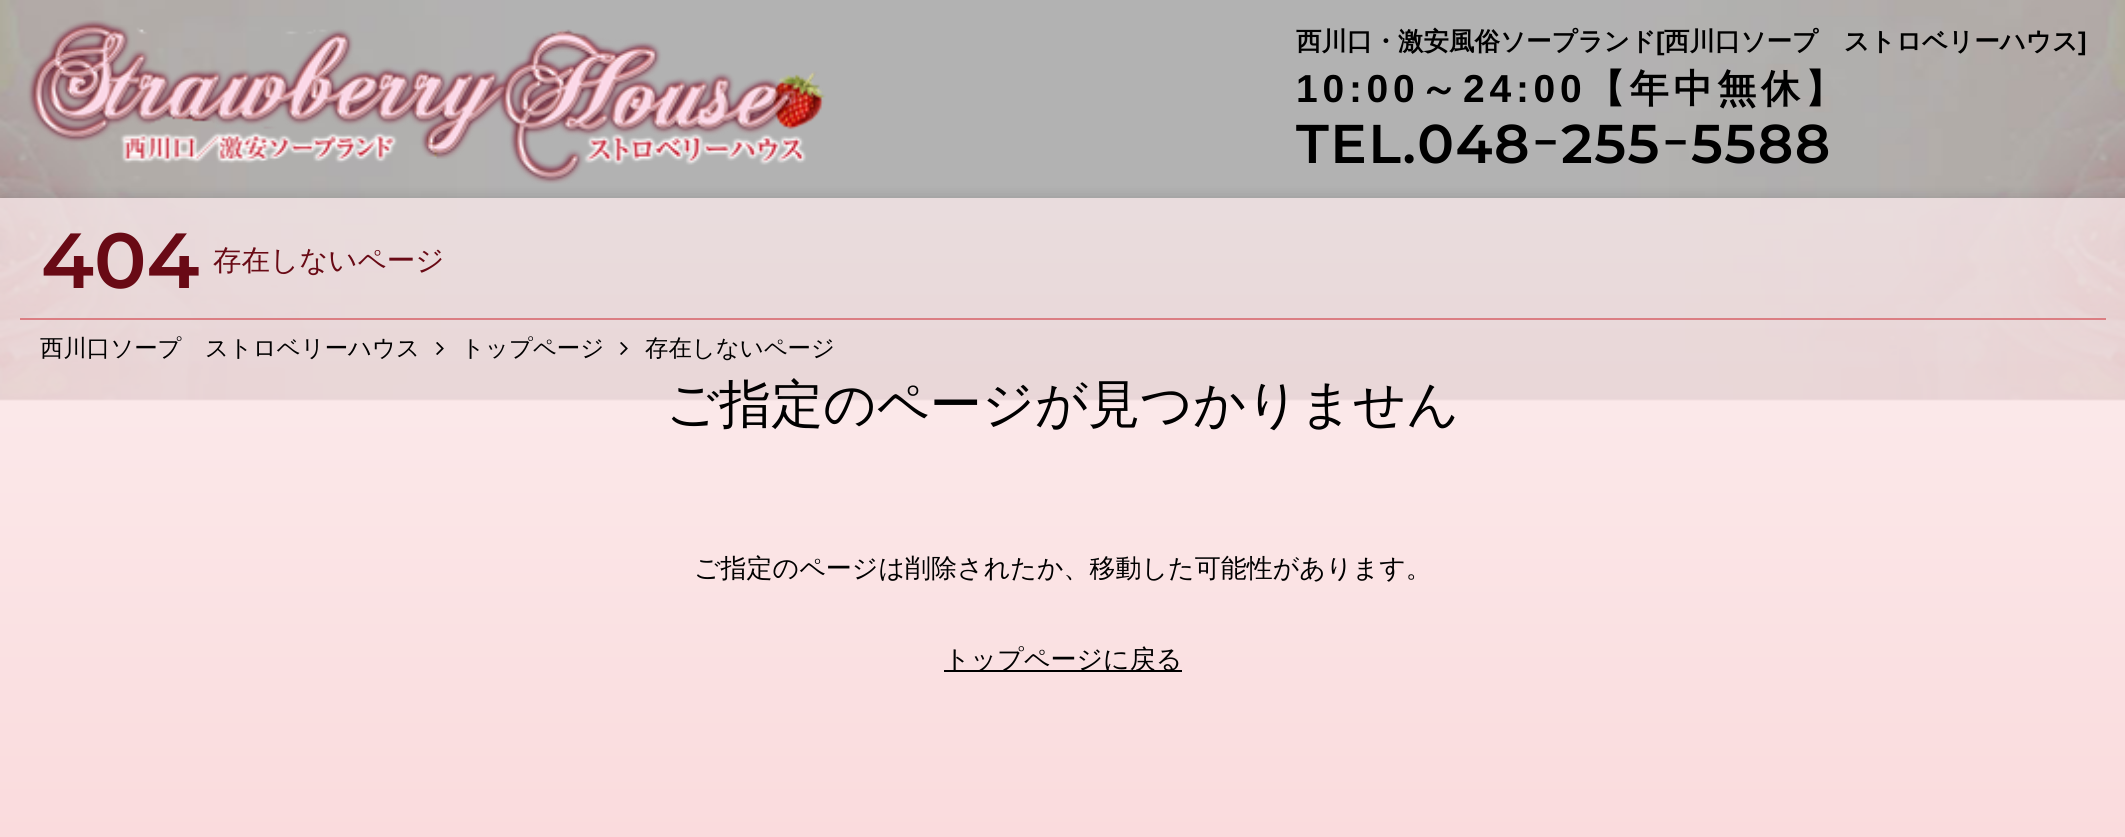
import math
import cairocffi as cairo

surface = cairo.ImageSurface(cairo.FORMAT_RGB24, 2125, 837)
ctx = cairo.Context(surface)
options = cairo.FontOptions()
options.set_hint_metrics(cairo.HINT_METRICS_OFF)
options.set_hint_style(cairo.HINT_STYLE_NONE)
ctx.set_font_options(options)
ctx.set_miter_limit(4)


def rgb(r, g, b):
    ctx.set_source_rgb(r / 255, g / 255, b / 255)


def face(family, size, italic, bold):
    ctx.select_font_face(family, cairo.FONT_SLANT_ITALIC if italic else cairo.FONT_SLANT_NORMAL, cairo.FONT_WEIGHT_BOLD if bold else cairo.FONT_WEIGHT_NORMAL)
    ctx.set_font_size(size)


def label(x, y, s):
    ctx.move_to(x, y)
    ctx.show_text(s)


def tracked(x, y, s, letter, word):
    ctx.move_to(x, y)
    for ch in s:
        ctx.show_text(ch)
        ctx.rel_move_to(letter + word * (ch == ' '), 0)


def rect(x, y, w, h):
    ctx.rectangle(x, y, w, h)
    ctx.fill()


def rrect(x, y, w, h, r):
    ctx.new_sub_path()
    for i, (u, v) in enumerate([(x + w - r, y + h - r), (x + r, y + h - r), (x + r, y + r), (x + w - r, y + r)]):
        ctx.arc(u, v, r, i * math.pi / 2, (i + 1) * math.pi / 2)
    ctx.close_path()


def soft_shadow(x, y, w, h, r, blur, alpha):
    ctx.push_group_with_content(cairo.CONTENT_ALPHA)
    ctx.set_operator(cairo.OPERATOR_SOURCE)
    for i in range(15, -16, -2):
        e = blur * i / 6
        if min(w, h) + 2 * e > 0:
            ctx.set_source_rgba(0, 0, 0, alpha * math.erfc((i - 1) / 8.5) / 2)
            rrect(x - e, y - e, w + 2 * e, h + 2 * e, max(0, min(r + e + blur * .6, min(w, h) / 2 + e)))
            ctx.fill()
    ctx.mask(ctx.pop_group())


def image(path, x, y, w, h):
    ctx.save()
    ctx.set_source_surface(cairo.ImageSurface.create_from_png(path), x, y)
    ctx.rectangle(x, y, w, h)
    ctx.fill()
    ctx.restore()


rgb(255, 255, 255)
ctx.paint()
image('image0.png', 0, 0, 2125, 401)
ctx.save()
ctx.rectangle(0, 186, 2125, 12)
ctx.clip()
rgb(112, 112, 112)
soft_shadow(2, 200, 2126, 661, 0, 8, 0.5)
ctx.restore()
image('image1.png', 27, 20, 799, 164)
face('WenQuanYi Zen Hei', 25.5, 0, 1)
rgb(0, 0, 0)
label(1296, 50, '西川口・激安風俗ソープランド')
face('Liberation Sans', 25.5, 0, 1)
label(1656, 50, '[')
face('WenQuanYi Zen Hei', 25.5, 0, 1)
label(1664, 50, '西川口ソープ　ストロベリーハウス')
face('Liberation Sans', 25.5, 0, 1)
label(2078, 50, ']')
face('Liberation Sans', 39, 0, 1)
tracked(1296, 102, '10:00', 4.75, 0)
face('WenQuanYi Zen Hei', 39, 0, 1)
tracked(1419, 102, '～', 4.75, 0)
face('Liberation Sans', 39, 0, 1)
tracked(1463, 102, '24:00', 4.75, 0)
face('WenQuanYi Zen Hei', 39, 0, 1)
tracked(1586, 102, '【年中無休】', 4.75, 0)
face('Montserrat Thin', 54.5, 0, 0)
tracked(1296, 163, 'TEL.048', 1.5, 0)
face('IPAPGothic', 54.5, 0, 0)
tracked(1532, 163, 'ｰ', 1.5, 0)
face('Montserrat Thin', 54.5, 0, 0)
tracked(1561, 163, '255', 1.5, 0)
face('IPAPGothic', 54.5, 0, 0)
tracked(1662, 163, 'ｰ', 1.5, 0)
face('Montserrat Thin', 54.5, 0, 0)
tracked(1691, 163, '5588', 1.5, 0)
gradient = cairo.LinearGradient(1063, 198, 1063, 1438)
gradient.add_color_stop_rgba(0, 0.98, 0.914, 0.918, 0.77)
gradient.add_color_stop_rgba(1, 0.965, 0.722, 0.737, 0.77)
ctx.set_source(gradient)
rect(0, 198, 2125, 639)
rgb(219, 126, 131)
rect(20, 318, 2086, 2)
face('Montserrat Thin', 78, 0, 0)
rgb(105, 10, 21)
label(41, 288, '404')
face('WenQuanYi Zen Hei Medium', 28.5, 0, 0)
label(213, 270, '存在しないページ')
face('WenQuanYi Zen Hei Medium', 23.4, 0, 0)
rgb(0, 0, 0)
label(40, 356, '西川口ソープ　ストロベリーハウス')
image('image2.png', 436, 342, 8, 13)
label(461, 356, 'トップページ')
image('image3.png', 620, 342, 8, 13)
label(645, 356, '存在しないページ')
face('WenQuanYi Zen Hei Medium', 52, 0, 0)
label(666, 422, 'ご指定のページが見つかりません')
face('WenQuanYi Zen Hei Medium', 26, 0, 0)
label(694, 577, 'ご指定のページは削除されたか、移動した可能性があります。')
rect(944, 670, 238, 2)
label(944, 668, 'トップページに戻る')
surface.write_to_png('render.png')
